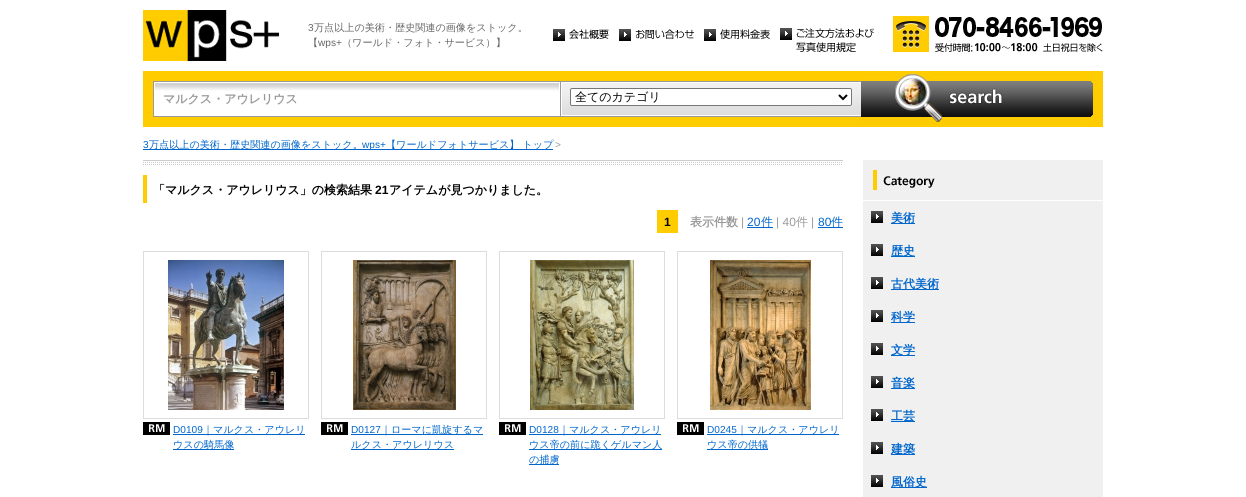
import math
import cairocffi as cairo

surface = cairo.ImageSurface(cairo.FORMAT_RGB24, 1246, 497)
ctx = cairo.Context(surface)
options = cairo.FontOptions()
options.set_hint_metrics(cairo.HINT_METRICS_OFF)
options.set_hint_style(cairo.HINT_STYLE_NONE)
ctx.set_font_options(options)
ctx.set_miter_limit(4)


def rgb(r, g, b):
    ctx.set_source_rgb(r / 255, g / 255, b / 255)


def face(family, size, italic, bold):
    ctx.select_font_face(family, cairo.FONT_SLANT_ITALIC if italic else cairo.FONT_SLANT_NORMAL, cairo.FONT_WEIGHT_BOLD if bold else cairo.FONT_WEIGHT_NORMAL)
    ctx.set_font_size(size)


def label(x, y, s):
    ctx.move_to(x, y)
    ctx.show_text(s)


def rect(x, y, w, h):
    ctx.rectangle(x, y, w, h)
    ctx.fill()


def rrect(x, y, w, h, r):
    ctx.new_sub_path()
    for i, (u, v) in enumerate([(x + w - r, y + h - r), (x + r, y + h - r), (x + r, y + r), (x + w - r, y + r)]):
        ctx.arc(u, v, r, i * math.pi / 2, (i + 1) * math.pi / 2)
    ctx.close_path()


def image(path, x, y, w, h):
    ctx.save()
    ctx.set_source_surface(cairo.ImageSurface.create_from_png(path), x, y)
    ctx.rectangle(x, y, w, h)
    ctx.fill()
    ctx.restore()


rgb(255, 255, 255)
ctx.paint()
image('image0.png', 143, 10, 136, 51)
face('Liberation Sans', 10.1, 0, 0)
rgb(102, 102, 102)
label(308, 31, '3')
face('WenQuanYi Zen Hei Medium', 10.1, 0, 0)
label(314, 31, '万点以上の美術・歴史関連の画像をストック。')
label(308, 46, '【')
face('Liberation Sans', 10.1, 0, 0)
label(318, 46, 'wps+')
face('WenQuanYi Zen Hei Medium', 10.1, 0, 0)
label(342, 46, '（ワールド・フォト・サービス）】')
image('image1.png', 553, 29, 56, 12)
image('image2.png', 619, 29, 75, 12)
image('image3.png', 704, 29, 66, 12)
image('image4.png', 780, 28, 94, 24)
image('image5.png', 893, 16, 210, 36)
rgb(255, 204, 0)
rect(143, 71, 960, 56)
image('image6.png', 153, 81, 407, 36)
face('WenQuanYi Zen Hei', 12, 0, 1)
rgb(153, 153, 153)
label(163, 103, 'マルクス・アウレリウス')
image('image7.png', 560, 81, 301, 36)
rgb(255, 255, 255)
rrect(570.5, 88.5, 281, 17, 1.5)
ctx.fill_preserve()
rgb(118, 118, 118)
ctx.set_line_width(1)
ctx.stroke()
ctx.new_path()
ctx.move_to(839, 95)
ctx.line_to(843, 99)
ctx.line_to(847, 95)
rgb(0, 0, 0)
ctx.set_line_width(2)
ctx.stroke()
face('WenQuanYi Zen Hei Medium', 12, 0, 0)
label(575, 101, '全てのカテゴリ')
image('image8.png', 861, 74, 232, 48)
face('Liberation Sans', 10.1, 0, 0)
rgb(0, 102, 204)
label(143, 148, '3')
rect(143, 149, 410, 1)
face('WenQuanYi Zen Hei Medium', 10.1, 0, 0)
label(149, 148, '万点以上の美術・歴史関連の画像をストック。')
face('Liberation Sans', 10.1, 0, 0)
label(362, 148, 'wps+')
face('WenQuanYi Zen Hei Medium', 10.1, 0, 0)
label(386, 148, '【ワールドフォトサービス】 トップ')
face('Liberation Sans', 10.1, 0, 0)
rgb(153, 153, 153)
label(555, 148, '>')
image('image9.png', 143, 160, 700, 5)
rgb(255, 204, 0)
rect(143, 175, 4, 28)
face('WenQuanYi Zen Hei', 12, 0, 1)
rgb(0, 0, 0)
label(153, 194, '「マルクス・アウレリウス」の検索結果')
face('Liberation Sans', 12, 0, 1)
label(375, 194, '21')
face('WenQuanYi Zen Hei', 12, 0, 1)
label(389, 194, 'アイテムが見つかりました。')
rgb(255, 204, 0)
rect(657, 210, 21, 23)
face('Liberation Sans', 12, 0, 1)
rgb(0, 0, 0)
label(664, 226, '1')
face('WenQuanYi Zen Hei', 12, 0, 1)
rgb(153, 153, 153)
label(690, 226, '表示件数')
face('Liberation Sans', 12, 0, 0)
label(741, 226, '|')
rgb(0, 102, 204)
label(747, 226, '20')
rect(747, 227, 26, 1)
face('WenQuanYi Zen Hei Medium', 12, 0, 0)
label(761, 226, '件')
face('Liberation Sans', 12, 0, 0)
rgb(153, 153, 153)
label(776, 226, '| 40')
face('WenQuanYi Zen Hei Medium', 12, 0, 0)
label(796, 226, '件')
face('Liberation Sans', 12, 0, 0)
label(811, 226, '|')
rgb(0, 102, 204)
label(818, 226, '80')
rect(818, 227, 25, 1)
face('WenQuanYi Zen Hei Medium', 12, 0, 0)
label(831, 226, '件')
rgb(220, 220, 220)
rect(143, 251, 166, 1)
rect(308, 251, 1, 168)
rect(143, 418, 166, 1)
rect(143, 251, 1, 168)
image('image10.png', 168, 260, 116, 150)
image('image11.png', 143, 422, 27, 13)
face('Liberation Sans', 10.1, 0, 0)
rgb(0, 102, 204)
label(173, 433, 'D0109')
rect(173, 434, 132, 1)
face('WenQuanYi Zen Hei Medium', 10.1, 0, 0)
label(203, 433, '｜マルクス・アウレリ')
rect(173, 449, 61, 1)
label(173, 448, 'ウスの騎馬像')
rgb(220, 220, 220)
rect(321, 251, 166, 1)
rect(486, 251, 1, 168)
rect(321, 418, 166, 1)
rect(321, 251, 1, 168)
image('image12.png', 353, 260, 103, 150)
image('image11.png', 321, 422, 27, 13)
face('Liberation Sans', 10.1, 0, 0)
rgb(0, 102, 204)
label(351, 433, 'D0127')
rect(351, 434, 132, 1)
face('WenQuanYi Zen Hei Medium', 10.1, 0, 0)
label(381, 433, '｜ローマに凱旋するマ')
rect(351, 449, 103, 1)
label(351, 448, 'ルクス・アウレリウス')
rgb(220, 220, 220)
rect(499, 251, 166, 1)
rect(664, 251, 1, 168)
rect(499, 418, 166, 1)
rect(499, 251, 1, 168)
image('image13.png', 530, 260, 104, 150)
image('image11.png', 499, 422, 27, 13)
face('Liberation Sans', 10.1, 0, 0)
rgb(0, 102, 204)
label(529, 433, 'D0128')
rect(529, 434, 132, 1)
face('WenQuanYi Zen Hei Medium', 10.1, 0, 0)
label(559, 433, '｜マルクス・アウレリ')
rect(529, 449, 133, 1)
label(529, 448, 'ウス帝の前に跪くゲルマン人')
rect(529, 464, 30, 1)
label(529, 463, 'の捕虜')
rgb(220, 220, 220)
rect(677, 251, 166, 1)
rect(842, 251, 1, 168)
rect(677, 418, 166, 1)
rect(677, 251, 1, 168)
image('image14.png', 710, 260, 101, 150)
image('image11.png', 677, 422, 27, 13)
face('Liberation Sans', 10.1, 0, 0)
rgb(0, 102, 204)
label(707, 433, 'D0245')
rect(707, 434, 132, 1)
face('WenQuanYi Zen Hei Medium', 10.1, 0, 0)
label(737, 433, '｜マルクス・アウレリ')
rect(707, 449, 61, 1)
label(707, 448, 'ウス帝の供犠')
image('image15.png', 863, 160, 240, 40)
rgb(240, 240, 240)
rect(863, 201, 240, 296)
image('image16.png', 871, 211, 12, 12)
rgb(0, 102, 204)
rect(891, 223, 24, 1)
face('WenQuanYi Zen Hei', 12, 0, 1)
label(891, 222, '美術')
image('image16.png', 871, 244, 12, 12)
rect(891, 256, 24, 1)
label(891, 255, '歴史')
image('image16.png', 871, 277, 12, 12)
rect(891, 289, 48, 1)
label(891, 288, '古代美術')
image('image16.png', 871, 310, 12, 12)
rect(891, 322, 24, 1)
label(891, 321, '科学')
image('image16.png', 871, 343, 12, 12)
rect(891, 355, 24, 1)
label(891, 354, '文学')
image('image16.png', 871, 376, 12, 12)
rect(891, 388, 24, 1)
label(891, 387, '音楽')
image('image16.png', 871, 409, 12, 12)
rect(891, 421, 24, 1)
label(891, 420, '工芸')
image('image16.png', 871, 442, 12, 12)
rect(891, 454, 24, 1)
label(891, 453, '建築')
image('image16.png', 871, 475, 12, 12)
rect(891, 487, 36, 1)
label(891, 486, '風俗史')
surface.write_to_png('render.png')
